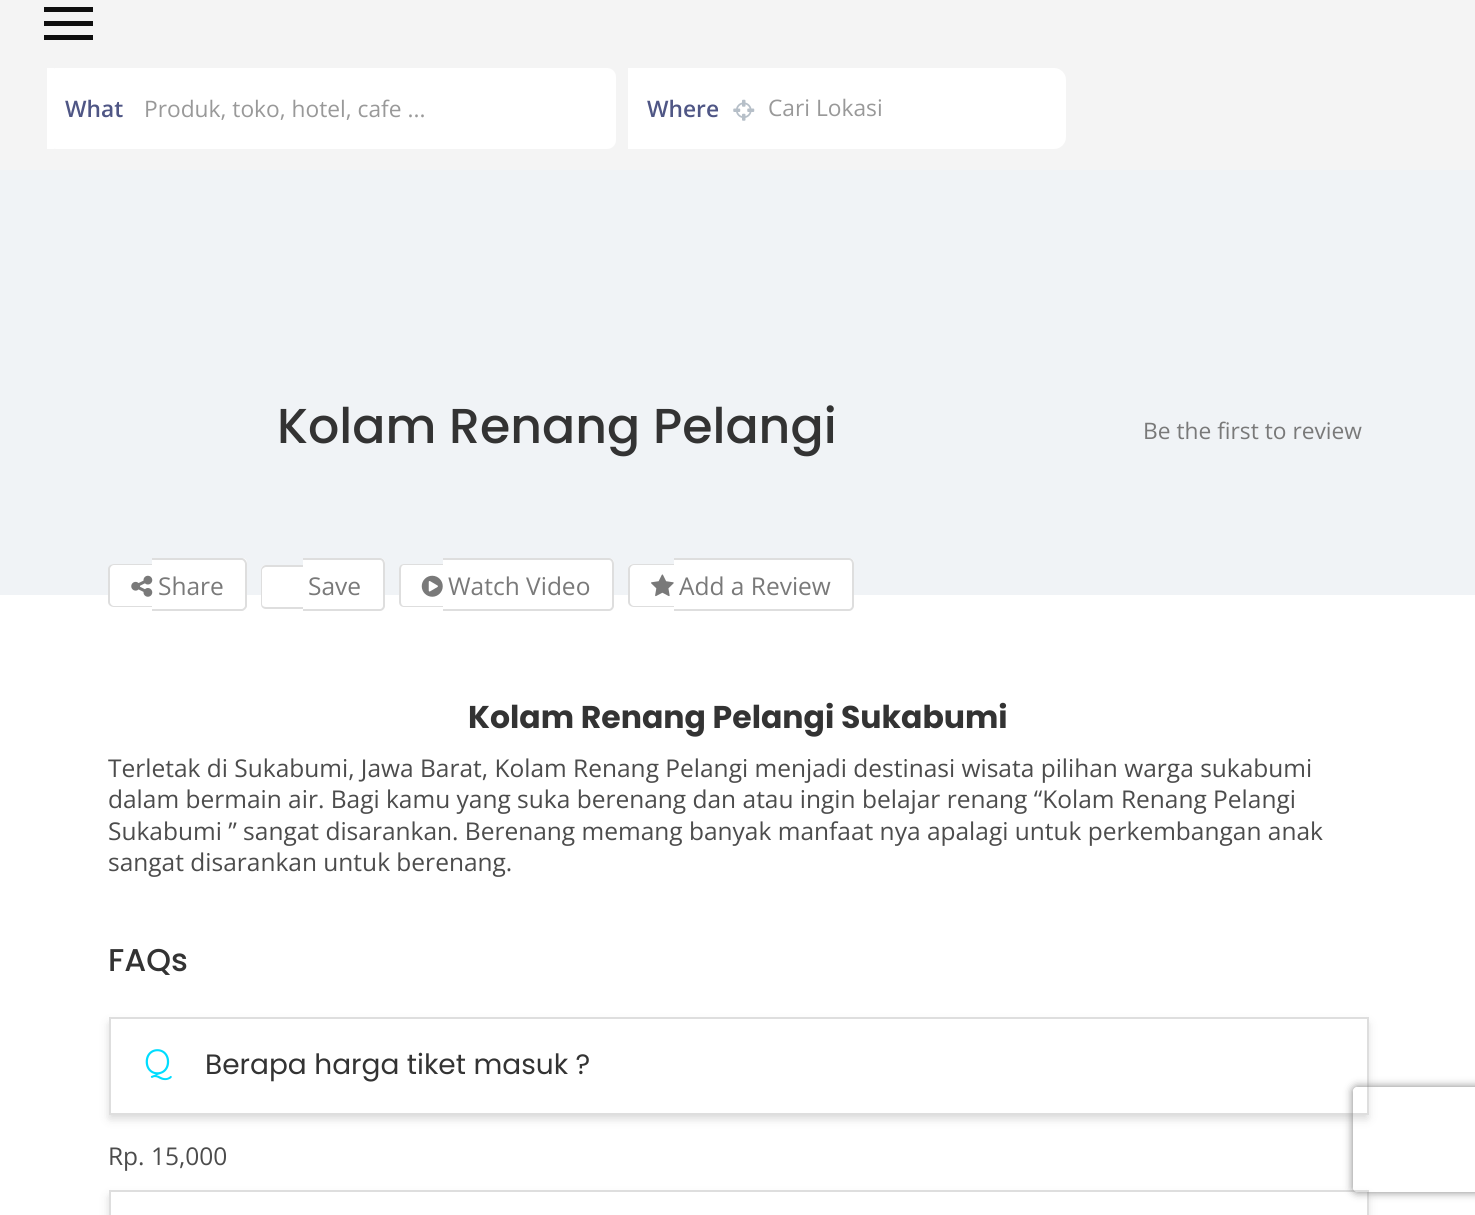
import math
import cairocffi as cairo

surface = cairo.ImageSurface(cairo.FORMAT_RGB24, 1475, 1215)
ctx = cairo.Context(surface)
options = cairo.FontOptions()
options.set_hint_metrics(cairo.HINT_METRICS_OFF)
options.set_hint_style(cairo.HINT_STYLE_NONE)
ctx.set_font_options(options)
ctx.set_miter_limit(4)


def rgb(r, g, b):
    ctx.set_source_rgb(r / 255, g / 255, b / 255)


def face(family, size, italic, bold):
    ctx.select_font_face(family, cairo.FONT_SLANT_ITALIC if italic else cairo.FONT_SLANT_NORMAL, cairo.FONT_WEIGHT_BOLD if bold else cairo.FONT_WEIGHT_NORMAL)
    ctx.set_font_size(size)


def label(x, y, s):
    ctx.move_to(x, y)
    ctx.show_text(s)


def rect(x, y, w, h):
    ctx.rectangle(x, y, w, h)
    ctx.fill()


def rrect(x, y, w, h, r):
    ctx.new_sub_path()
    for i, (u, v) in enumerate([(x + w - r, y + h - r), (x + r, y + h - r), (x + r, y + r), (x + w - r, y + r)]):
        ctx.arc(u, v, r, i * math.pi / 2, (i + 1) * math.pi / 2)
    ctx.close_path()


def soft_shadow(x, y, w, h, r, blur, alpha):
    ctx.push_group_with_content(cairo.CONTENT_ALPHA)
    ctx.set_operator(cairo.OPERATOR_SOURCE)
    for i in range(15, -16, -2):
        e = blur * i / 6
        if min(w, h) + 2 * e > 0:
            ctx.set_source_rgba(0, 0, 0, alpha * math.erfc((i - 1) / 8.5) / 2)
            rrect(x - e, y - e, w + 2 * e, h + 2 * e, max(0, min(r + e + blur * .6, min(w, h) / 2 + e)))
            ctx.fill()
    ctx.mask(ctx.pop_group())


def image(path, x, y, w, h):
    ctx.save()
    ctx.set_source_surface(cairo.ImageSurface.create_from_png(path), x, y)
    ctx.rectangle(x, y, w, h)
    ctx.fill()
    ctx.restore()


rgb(255, 255, 255)
ctx.paint()
rgb(244, 244, 244)
rect(0, 0, 1475, 170)
rgb(15, 15, 15)
rect(44, 7, 49, 5)
rect(44, 21, 49, 5)
rect(44, 35, 49, 5)
rgb(255, 255, 255)
rrect(47, 68, 569, 81, 9)
ctx.fill()
rect(47, 68, 7, 81)
face('Open Sans SemiBold', 22.75, 0, 0)
rgb(79, 86, 133)
label(65, 117, 'What')
face('Open Sans', 22.75, 0, 0)
rgb(153, 153, 153)
label(144, 117, 'Produk, toko, hotel, cafe ...')
rgb(255, 255, 255)
ctx.new_path()
ctx.move_to(628, 68)
ctx.line_to(1046, 68)
ctx.curve_to(1051, 68, 1055, 72, 1055, 77)
ctx.line_to(1055, 140)
ctx.curve_to(1055, 145, 1051, 149, 1046, 149)
ctx.line_to(628, 149)
ctx.close_path()
ctx.fill()
face('Open Sans SemiBold', 22.75, 0, 0)
rgb(79, 86, 133)
label(647, 117, 'Where')
image('image0.png', 733, 99, 22, 22)
face('Open Sans', 22.75, 0, 0)
rgb(153, 153, 153)
label(768, 116, 'Cari Lokasi')
rgb(255, 255, 255)
rrect(982, 68, 84, 81, 12)
ctx.fill()
rgb(240, 243, 246)
rect(0, 170, 1475, 425)
face('Poppins Medium', 49, 0, 0)
rgb(51, 51, 51)
label(277, 443, 'Kolam Renang Pelangi')
face('Open Sans', 22.75, 0, 0)
rgb(121, 121, 121)
label(1143, 439, 'Be the first to review')
rgb(255, 255, 255)
ctx.new_path()
ctx.move_to(114, 564)
ctx.line_to(152, 564)
ctx.line_to(152, 607)
ctx.line_to(114, 607)
ctx.curve_to(111, 607, 109, 605, 109, 602)
ctx.line_to(109, 569)
ctx.curve_to(109, 566, 111, 564, 114, 564)
ctx.close_path()
ctx.fill()
rgb(222, 222, 222)
ctx.set_fill_rule(cairo.FILL_RULE_EVEN_ODD)
ctx.new_path()
ctx.move_to(114, 564)
ctx.line_to(152, 564)
ctx.line_to(152, 607)
ctx.line_to(114, 607)
ctx.curve_to(111, 607, 108, 605, 108, 602)
ctx.line_to(108, 569)
ctx.curve_to(108, 566, 111, 564, 114, 564)
ctx.close_path()
ctx.move_to(114, 565)
ctx.line_to(152, 565)
ctx.line_to(152, 606)
ctx.line_to(114, 606)
ctx.curve_to(112, 606, 110, 604, 110, 602)
ctx.line_to(110, 569)
ctx.curve_to(110, 567, 112, 565, 114, 565)
ctx.close_path()
ctx.fill()
rgb(255, 255, 255)
ctx.new_path()
ctx.move_to(152, 558)
ctx.line_to(242, 558)
ctx.curve_to(245, 558, 247, 560, 247, 563)
ctx.line_to(247, 606)
ctx.curve_to(247, 609, 245, 611, 242, 611)
ctx.line_to(152, 611)
ctx.close_path()
ctx.fill()
rgb(222, 222, 222)
ctx.new_path()
ctx.move_to(152, 558)
ctx.line_to(242, 558)
ctx.curve_to(244, 558, 247, 561, 247, 564)
ctx.line_to(247, 606)
ctx.curve_to(247, 608, 244, 611, 242, 611)
ctx.line_to(152, 611)
ctx.close_path()
ctx.move_to(152, 560)
ctx.line_to(242, 560)
ctx.curve_to(243, 560, 245, 562, 245, 564)
ctx.line_to(245, 606)
ctx.curve_to(245, 607, 243, 609, 242, 609)
ctx.line_to(152, 609)
ctx.close_path()
ctx.fill()
image('image1.png', 131, 575, 22, 22)
face('Open Sans', 24.5, 0, 0)
rgb(121, 121, 121)
label(158, 595, 'Share')
rgb(255, 255, 255)
ctx.new_path()
ctx.move_to(303, 558)
ctx.line_to(380, 558)
ctx.curve_to(383, 558, 385, 560, 385, 563)
ctx.line_to(385, 606)
ctx.curve_to(385, 609, 383, 611, 380, 611)
ctx.line_to(303, 611)
ctx.close_path()
ctx.fill()
rgb(222, 222, 222)
ctx.new_path()
ctx.move_to(303, 558)
ctx.line_to(380, 558)
ctx.curve_to(383, 558, 385, 561, 385, 564)
ctx.line_to(385, 606)
ctx.curve_to(385, 608, 383, 611, 380, 611)
ctx.line_to(303, 611)
ctx.close_path()
ctx.move_to(303, 560)
ctx.line_to(380, 560)
ctx.curve_to(382, 560, 383, 562, 383, 564)
ctx.line_to(383, 606)
ctx.curve_to(383, 607, 382, 609, 380, 609)
ctx.line_to(303, 609)
ctx.close_path()
ctx.fill()
rgb(121, 121, 121)
label(308, 595, 'Save')
rgb(255, 255, 255)
ctx.new_path()
ctx.move_to(266, 565)
ctx.line_to(303, 565)
ctx.line_to(303, 609)
ctx.line_to(266, 609)
ctx.curve_to(263, 609, 261, 607, 261, 604)
ctx.line_to(261, 570)
ctx.curve_to(261, 567, 263, 565, 266, 565)
ctx.close_path()
ctx.fill()
rgb(222, 222, 222)
ctx.new_path()
ctx.move_to(266, 565)
ctx.line_to(303, 565)
ctx.line_to(303, 609)
ctx.line_to(266, 609)
ctx.curve_to(263, 609, 261, 607, 261, 604)
ctx.line_to(261, 570)
ctx.curve_to(261, 568, 263, 565, 266, 565)
ctx.close_path()
ctx.move_to(266, 567)
ctx.line_to(303, 567)
ctx.line_to(303, 607)
ctx.line_to(266, 607)
ctx.curve_to(264, 607, 262, 606, 262, 604)
ctx.line_to(262, 570)
ctx.curve_to(262, 569, 264, 567, 266, 567)
ctx.close_path()
ctx.fill()
rgb(255, 255, 255)
ctx.new_path()
ctx.move_to(404, 564)
ctx.line_to(443, 564)
ctx.line_to(443, 607)
ctx.line_to(404, 607)
ctx.curve_to(401, 607, 399, 605, 399, 602)
ctx.line_to(399, 569)
ctx.curve_to(399, 566, 401, 564, 404, 564)
ctx.close_path()
ctx.fill()
rgb(222, 222, 222)
ctx.new_path()
ctx.move_to(404, 564)
ctx.line_to(443, 564)
ctx.line_to(443, 607)
ctx.line_to(404, 607)
ctx.curve_to(401, 607, 399, 605, 399, 602)
ctx.line_to(399, 569)
ctx.curve_to(399, 566, 401, 564, 404, 564)
ctx.close_path()
ctx.move_to(404, 565)
ctx.line_to(443, 565)
ctx.line_to(443, 606)
ctx.line_to(404, 606)
ctx.curve_to(402, 606, 401, 604, 401, 602)
ctx.line_to(401, 569)
ctx.curve_to(401, 567, 402, 565, 404, 565)
ctx.close_path()
ctx.fill()
rgb(255, 255, 255)
ctx.new_path()
ctx.move_to(443, 558)
ctx.line_to(609, 558)
ctx.curve_to(612, 558, 614, 560, 614, 563)
ctx.line_to(614, 606)
ctx.curve_to(614, 609, 612, 611, 609, 611)
ctx.line_to(443, 611)
ctx.close_path()
ctx.fill()
rgb(222, 222, 222)
ctx.new_path()
ctx.move_to(443, 558)
ctx.line_to(609, 558)
ctx.curve_to(612, 558, 614, 561, 614, 564)
ctx.line_to(614, 606)
ctx.curve_to(614, 608, 612, 611, 609, 611)
ctx.line_to(443, 611)
ctx.close_path()
ctx.move_to(443, 560)
ctx.line_to(609, 560)
ctx.curve_to(611, 560, 612, 562, 612, 564)
ctx.line_to(612, 606)
ctx.curve_to(612, 607, 611, 609, 609, 609)
ctx.line_to(443, 609)
ctx.close_path()
ctx.fill()
image('image2.png', 421, 575, 22, 22)
rgb(121, 121, 121)
label(448, 595, 'Watch Video')
rgb(255, 255, 255)
ctx.new_path()
ctx.move_to(633, 564)
ctx.line_to(674, 564)
ctx.line_to(674, 607)
ctx.line_to(633, 607)
ctx.curve_to(630, 607, 628, 605, 628, 602)
ctx.line_to(628, 569)
ctx.curve_to(628, 566, 630, 564, 633, 564)
ctx.close_path()
ctx.fill()
rgb(222, 222, 222)
ctx.new_path()
ctx.move_to(634, 564)
ctx.line_to(674, 564)
ctx.line_to(674, 607)
ctx.line_to(634, 607)
ctx.curve_to(631, 607, 628, 605, 628, 602)
ctx.line_to(628, 569)
ctx.curve_to(628, 566, 631, 564, 634, 564)
ctx.close_path()
ctx.move_to(634, 565)
ctx.line_to(674, 565)
ctx.line_to(674, 606)
ctx.line_to(634, 606)
ctx.curve_to(632, 606, 630, 604, 630, 602)
ctx.line_to(630, 569)
ctx.curve_to(630, 567, 632, 565, 634, 565)
ctx.close_path()
ctx.fill()
rgb(255, 255, 255)
ctx.new_path()
ctx.move_to(674, 558)
ctx.line_to(849, 558)
ctx.curve_to(852, 558, 854, 560, 854, 563)
ctx.line_to(854, 606)
ctx.curve_to(854, 609, 852, 611, 849, 611)
ctx.line_to(674, 611)
ctx.close_path()
ctx.fill()
rgb(222, 222, 222)
ctx.new_path()
ctx.move_to(674, 558)
ctx.line_to(849, 558)
ctx.curve_to(852, 558, 854, 561, 854, 564)
ctx.line_to(854, 606)
ctx.curve_to(854, 608, 852, 611, 849, 611)
ctx.line_to(674, 611)
ctx.close_path()
ctx.move_to(674, 560)
ctx.line_to(849, 560)
ctx.curve_to(851, 560, 852, 562, 852, 564)
ctx.line_to(852, 606)
ctx.curve_to(852, 607, 851, 609, 849, 609)
ctx.line_to(674, 609)
ctx.close_path()
ctx.fill()
image('image3.png', 651, 574, 23, 23)
rgb(121, 121, 121)
label(679, 595, 'Add a Review')
face('Poppins', 31.5, 0, 1)
rgb(51, 51, 51)
label(468, 728, 'Kolam Renang Pelangi Sukabumi')
face('Open Sans', 24.5, 0, 0)
rgb(76, 76, 76)
label(108, 777, 'Terletak di Sukabumi, Jawa Barat, Kolam Renang Pelangi menjadi destinasi wisata pilihan warga sukabumi')
label(108, 808, 'dalam bermain air. Bagi kamu yang suka berenang dan atau ingin belajar renang “Kolam Renang Pelangi')
label(108, 840, 'Sukabumi ” sangat disarankan. Berenang memang banyak manfaat nya apalagi untuk perkembangan anak')
label(108, 871, 'sangat disarankan untuk berenang.')
face('Poppins Medium', 31.5, 0, 0)
rgb(51, 51, 51)
label(108, 971, 'FAQs')
ctx.save()
ctx.new_path()
ctx.move_to(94, 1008)
ctx.line_to(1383, 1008)
ctx.line_to(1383, 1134)
ctx.line_to(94, 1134)
ctx.close_path()
ctx.move_to(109, 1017)
ctx.line_to(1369, 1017)
ctx.line_to(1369, 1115)
ctx.line_to(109, 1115)
ctx.close_path()
ctx.clip()
rgb(0, 0, 0)
soft_shadow(110, 1024, 1257, 94, 0, 5, 0.17)
ctx.restore()
ctx.rectangle(110, 1018, 1258, 96)
rgb(222, 222, 222)
ctx.stroke()
face('Quicksand Light', 35, 0, 0)
rgb(0, 221, 255)
label(144, 1074, 'Q')
face('Poppins', 28, 0, 0)
rgb(51, 51, 51)
label(205, 1074, 'Berapa harga tiket masuk ?')
face('Open Sans', 24.5, 0, 0)
rgb(76, 76, 76)
label(108, 1165, 'Rp. 15,000')
ctx.save()
ctx.new_path()
ctx.move_to(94, 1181)
ctx.line_to(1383, 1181)
ctx.line_to(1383, 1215)
ctx.line_to(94, 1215)
ctx.close_path()
ctx.move_to(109, 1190)
ctx.line_to(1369, 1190)
ctx.line_to(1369, 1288)
ctx.line_to(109, 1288)
ctx.close_path()
ctx.clip()
rgb(0, 0, 0)
soft_shadow(110, 1197, 1257, 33, 0, 5, 0.17)
ctx.restore()
ctx.rectangle(110, 1191, 1258, 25)
rgb(222, 222, 222)
ctx.stroke()
ctx.save()
ctx.new_path()
ctx.move_to(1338, 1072)
ctx.line_to(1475, 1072)
ctx.line_to(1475, 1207)
ctx.line_to(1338, 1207)
ctx.close_path()
ctx.move_to(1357, 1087)
ctx.line_to(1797, 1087)
ctx.curve_to(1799, 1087, 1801, 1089, 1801, 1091)
ctx.line_to(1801, 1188)
ctx.curve_to(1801, 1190, 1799, 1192, 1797, 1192)
ctx.line_to(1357, 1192)
ctx.curve_to(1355, 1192, 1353, 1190, 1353, 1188)
ctx.line_to(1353, 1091)
ctx.curve_to(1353, 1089, 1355, 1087, 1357, 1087)
ctx.close_path()
ctx.clip()
rgb(128, 128, 128)
soft_shadow(1353, 1087, 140, 105, 4, 4.5, 1)
ctx.restore()
surface.write_to_png('render.png')
